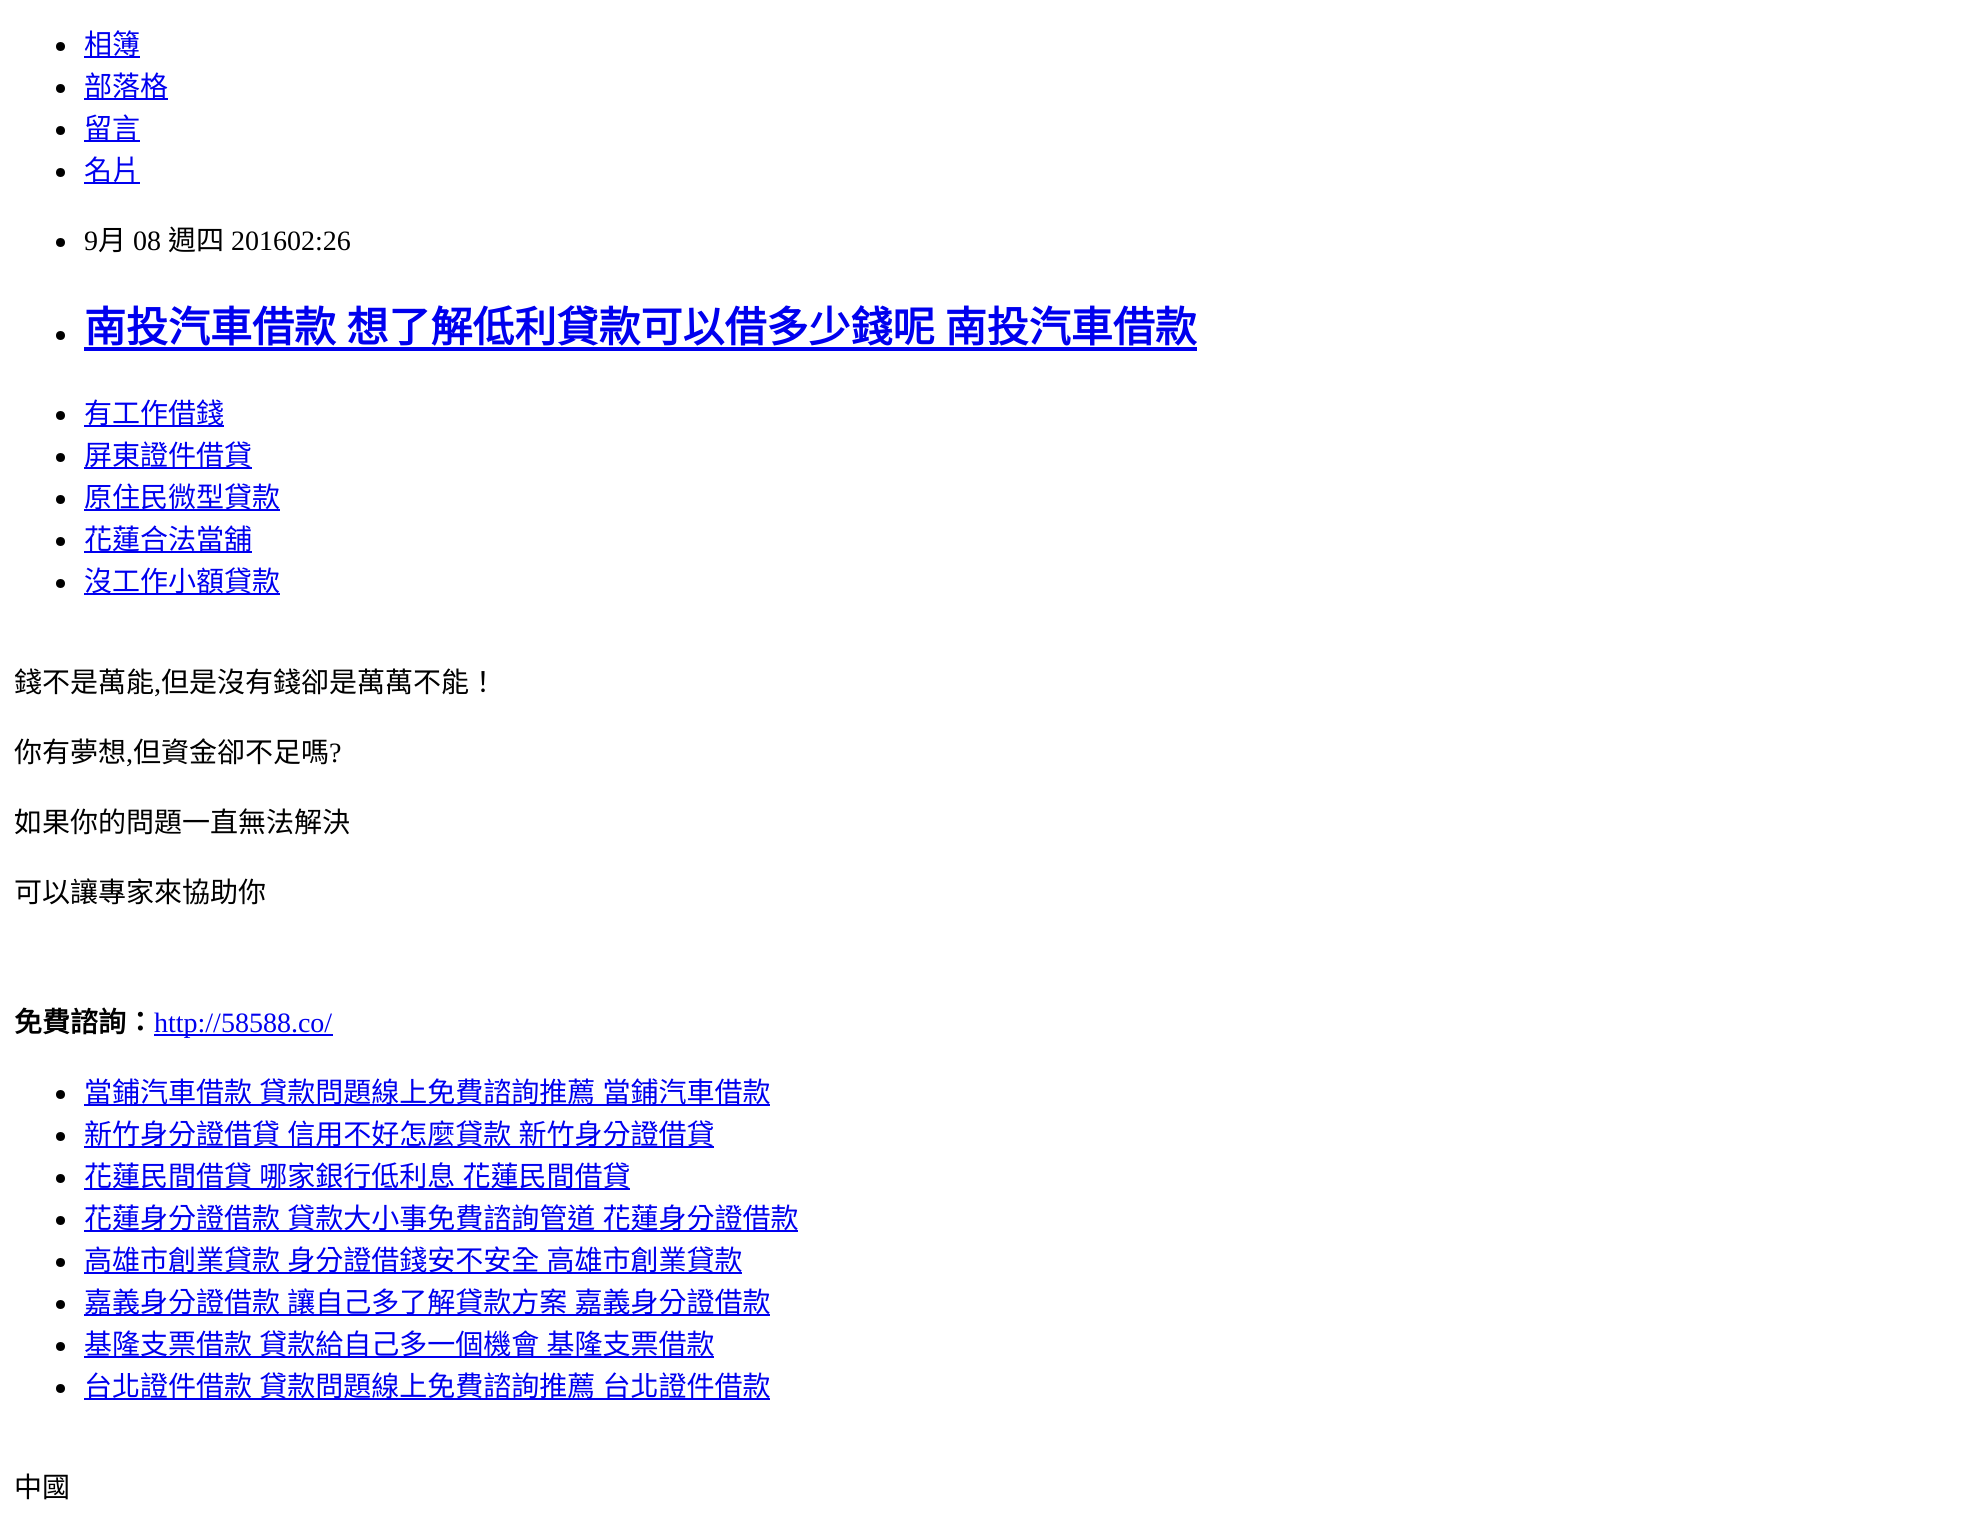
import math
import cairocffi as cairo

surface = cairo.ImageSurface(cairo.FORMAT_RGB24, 1962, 1524)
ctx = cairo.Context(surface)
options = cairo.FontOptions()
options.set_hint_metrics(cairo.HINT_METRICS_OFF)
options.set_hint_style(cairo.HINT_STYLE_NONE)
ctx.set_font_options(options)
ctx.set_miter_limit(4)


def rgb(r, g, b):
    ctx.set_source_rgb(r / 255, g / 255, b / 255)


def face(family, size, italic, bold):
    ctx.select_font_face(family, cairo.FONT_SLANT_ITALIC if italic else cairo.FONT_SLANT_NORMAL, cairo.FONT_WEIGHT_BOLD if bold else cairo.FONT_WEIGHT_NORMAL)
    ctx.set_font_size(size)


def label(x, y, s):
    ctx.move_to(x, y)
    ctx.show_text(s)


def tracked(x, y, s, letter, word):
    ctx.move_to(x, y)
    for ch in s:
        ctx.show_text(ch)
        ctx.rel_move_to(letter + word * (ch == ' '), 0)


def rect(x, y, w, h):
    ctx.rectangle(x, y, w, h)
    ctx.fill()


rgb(255, 255, 255)
ctx.paint()
rgb(0, 0, 0)
ctx.arc(60.5, 46.5, 4.5, 0, 2 * math.pi)
ctx.fill()
rgb(0, 0, 238)
rect(84, 56, 56, 2)
face('Noto Sans CJK TC', 28, 0, 0)
label(84, 54, '相簿')
rgb(0, 0, 0)
ctx.new_path()
ctx.arc(60.5, 88.5, 4.5, 0, 2 * math.pi)
ctx.fill()
rgb(0, 0, 238)
rect(84, 98, 84, 2)
label(84, 96, '部落格')
rgb(0, 0, 0)
ctx.new_path()
ctx.arc(60.5, 130.5, 4.5, 0, 2 * math.pi)
ctx.fill()
rgb(0, 0, 238)
rect(84, 140, 56, 2)
label(84, 138, '留言')
rgb(0, 0, 0)
ctx.new_path()
ctx.arc(60.5, 172.5, 4.5, 0, 2 * math.pi)
ctx.fill()
rgb(0, 0, 238)
rect(84, 182, 56, 2)
label(84, 180, '名片')
rgb(0, 0, 0)
ctx.new_path()
ctx.arc(60.5, 242.5, 4.5, 0, 2 * math.pi)
ctx.fill()
face('Liberation Serif', 28, 0, 0)
label(84, 250, '9')
face('Noto Sans CJK TC', 28, 0, 0)
label(98, 250, '月')
face('Liberation Serif', 28, 0, 0)
label(133, 250, '08')
face('Noto Sans CJK TC', 28, 0, 0)
label(168, 250, '週四')
face('Liberation Serif', 28, 0, 0)
label(231, 250, '201602:26')
ctx.new_path()
ctx.arc(60.5, 335.5, 4.5, 0, 2 * math.pi)
ctx.fill()
face('Noto Sans CJK TC', 42, 0, 1)
rgb(0, 0, 238)
tracked(84, 342, '南投汽車借款 想了解低利貸款可以借多少錢呢 南投汽車借款', 0, 1)
rect(84, 347, 1113, 4)
rgb(0, 0, 0)
ctx.new_path()
ctx.arc(60.5, 415.5, 4.5, 0, 2 * math.pi)
ctx.fill()
rgb(0, 0, 238)
rect(84, 425, 140, 2)
face('Noto Sans CJK TC', 28, 0, 0)
label(84, 423, '有工作借錢')
rgb(0, 0, 0)
ctx.new_path()
ctx.arc(60.5, 457.5, 4.5, 0, 2 * math.pi)
ctx.fill()
rgb(0, 0, 238)
rect(84, 467, 168, 2)
label(84, 465, '屏東證件借貸')
rgb(0, 0, 0)
ctx.new_path()
ctx.arc(60.5, 499.5, 4.5, 0, 2 * math.pi)
ctx.fill()
rgb(0, 0, 238)
rect(84, 509, 196, 2)
label(84, 507, '原住民微型貸款')
rgb(0, 0, 0)
ctx.new_path()
ctx.arc(60.5, 541.5, 4.5, 0, 2 * math.pi)
ctx.fill()
rgb(0, 0, 238)
rect(84, 551, 168, 2)
label(84, 549, '花蓮合法當舖')
rgb(0, 0, 0)
ctx.new_path()
ctx.arc(60.5, 583.5, 4.5, 0, 2 * math.pi)
ctx.fill()
rgb(0, 0, 238)
rect(84, 593, 196, 2)
label(84, 591, '沒工作小額貸款')
rgb(0, 0, 0)
label(14, 692, '錢不是萬能')
face('Liberation Serif', 28, 0, 0)
label(154, 692, ',')
face('Noto Sans CJK TC', 28, 0, 0)
label(161, 692, '但是沒有錢卻是萬萬不能！')
label(14, 762, '你有夢想')
face('Liberation Serif', 28, 0, 0)
label(126, 762, ',')
face('Noto Sans CJK TC', 28, 0, 0)
label(133, 762, '但資金卻不足嗎')
face('Liberation Serif', 28, 0, 0)
label(329, 762, '?')
face('Noto Sans CJK TC', 28, 0, 0)
label(14, 832, '如果你的問題一直無法解決')
label(14, 902, '可以讓專家來協助你')
face('Noto Sans CJK TC', 28, 0, 1)
label(14, 1032, '免費諮詢：')
rgb(0, 0, 238)
rect(154, 1034, 179, 2)
face('Liberation Serif', 28, 0, 0)
label(154, 1032, 'http://58588.co/')
rgb(0, 0, 0)
ctx.new_path()
ctx.arc(60.5, 1094.5, 4.5, 0, 2 * math.pi)
ctx.fill()
rgb(0, 0, 238)
rect(84, 1104, 686, 2)
face('Noto Sans CJK TC', 28, 0, 0)
tracked(84, 1102, '當鋪汽車借款 貸款問題線上免費諮詢推薦 當鋪汽車借款', 0, 1)
rgb(0, 0, 0)
ctx.new_path()
ctx.arc(60.5, 1136.5, 4.5, 0, 2 * math.pi)
ctx.fill()
rgb(0, 0, 238)
rect(84, 1146, 630, 2)
tracked(84, 1144, '新竹身分證借貸 信用不好怎麼貸款 新竹身分證借貸', 0, 1)
rgb(0, 0, 0)
ctx.new_path()
ctx.arc(60.5, 1178.5, 4.5, 0, 2 * math.pi)
ctx.fill()
rgb(0, 0, 238)
rect(84, 1188, 546, 2)
tracked(84, 1186, '花蓮民間借貸 哪家銀行低利息 花蓮民間借貸', 0, 1)
rgb(0, 0, 0)
ctx.new_path()
ctx.arc(60.5, 1220.5, 4.5, 0, 2 * math.pi)
ctx.fill()
rgb(0, 0, 238)
rect(84, 1230, 714, 2)
tracked(84, 1228, '花蓮身分證借款 貸款大小事免費諮詢管道 花蓮身分證借款', 0, 1)
rgb(0, 0, 0)
ctx.new_path()
ctx.arc(60.5, 1262.5, 4.5, 0, 2 * math.pi)
ctx.fill()
rgb(0, 0, 238)
rect(84, 1272, 658, 2)
tracked(84, 1270, '高雄市創業貸款 身分證借錢安不安全 高雄市創業貸款', 0, 1)
rgb(0, 0, 0)
ctx.new_path()
ctx.arc(60.5, 1304.5, 4.5, 0, 2 * math.pi)
ctx.fill()
rgb(0, 0, 238)
rect(84, 1314, 686, 2)
tracked(84, 1312, '嘉義身分證借款 讓自己多了解貸款方案 嘉義身分證借款', 0, 1)
rgb(0, 0, 0)
ctx.new_path()
ctx.arc(60.5, 1346.5, 4.5, 0, 2 * math.pi)
ctx.fill()
rgb(0, 0, 238)
rect(84, 1356, 630, 2)
tracked(84, 1354, '基隆支票借款 貸款給自己多一個機會 基隆支票借款', 0, 1)
rgb(0, 0, 0)
ctx.new_path()
ctx.arc(60.5, 1388.5, 4.5, 0, 2 * math.pi)
ctx.fill()
rgb(0, 0, 238)
rect(84, 1398, 686, 2)
tracked(84, 1396, '台北證件借款 貸款問題線上免費諮詢推薦 台北證件借款', 0, 1)
rgb(0, 0, 0)
label(14, 1497, '中國')
surface.write_to_png('render.png')
